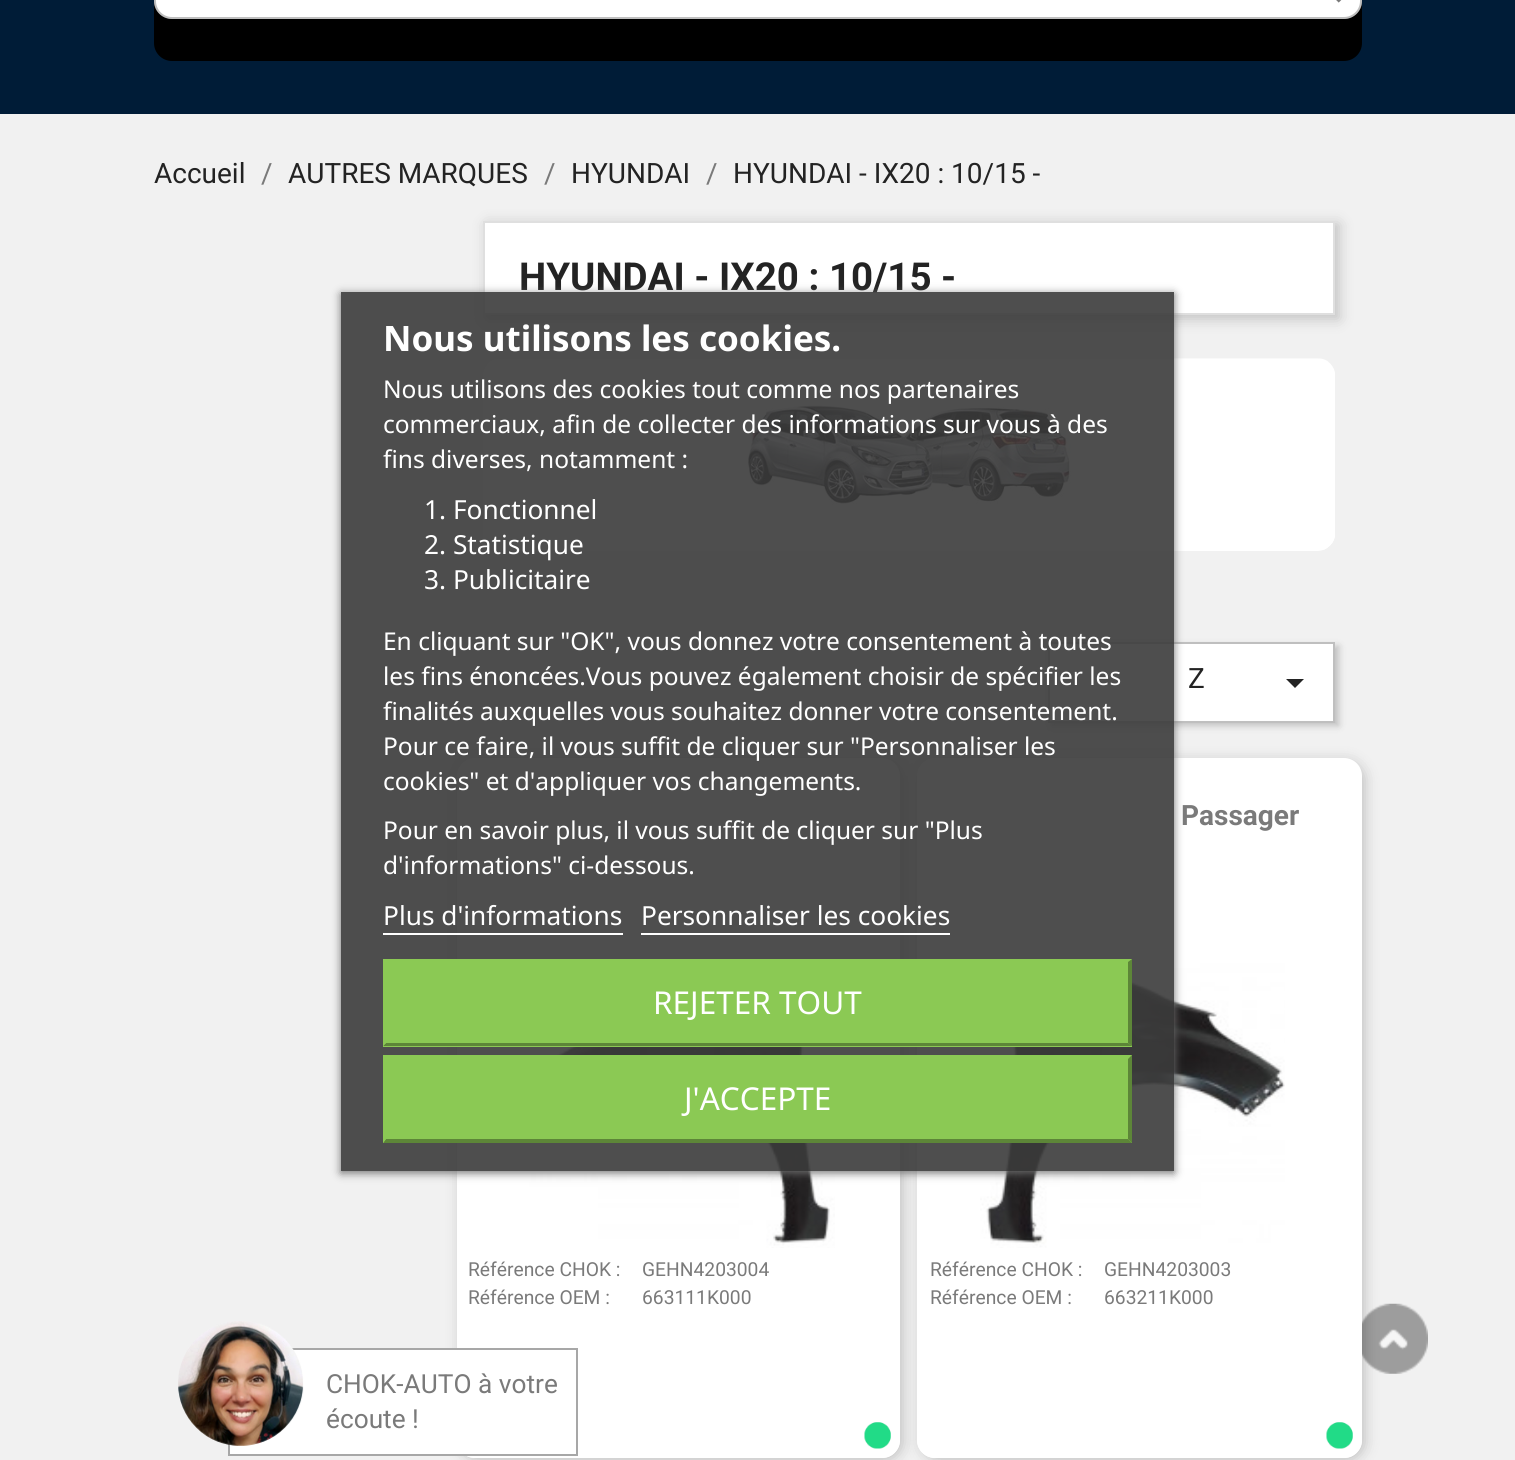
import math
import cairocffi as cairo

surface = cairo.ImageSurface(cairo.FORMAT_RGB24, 1515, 1460)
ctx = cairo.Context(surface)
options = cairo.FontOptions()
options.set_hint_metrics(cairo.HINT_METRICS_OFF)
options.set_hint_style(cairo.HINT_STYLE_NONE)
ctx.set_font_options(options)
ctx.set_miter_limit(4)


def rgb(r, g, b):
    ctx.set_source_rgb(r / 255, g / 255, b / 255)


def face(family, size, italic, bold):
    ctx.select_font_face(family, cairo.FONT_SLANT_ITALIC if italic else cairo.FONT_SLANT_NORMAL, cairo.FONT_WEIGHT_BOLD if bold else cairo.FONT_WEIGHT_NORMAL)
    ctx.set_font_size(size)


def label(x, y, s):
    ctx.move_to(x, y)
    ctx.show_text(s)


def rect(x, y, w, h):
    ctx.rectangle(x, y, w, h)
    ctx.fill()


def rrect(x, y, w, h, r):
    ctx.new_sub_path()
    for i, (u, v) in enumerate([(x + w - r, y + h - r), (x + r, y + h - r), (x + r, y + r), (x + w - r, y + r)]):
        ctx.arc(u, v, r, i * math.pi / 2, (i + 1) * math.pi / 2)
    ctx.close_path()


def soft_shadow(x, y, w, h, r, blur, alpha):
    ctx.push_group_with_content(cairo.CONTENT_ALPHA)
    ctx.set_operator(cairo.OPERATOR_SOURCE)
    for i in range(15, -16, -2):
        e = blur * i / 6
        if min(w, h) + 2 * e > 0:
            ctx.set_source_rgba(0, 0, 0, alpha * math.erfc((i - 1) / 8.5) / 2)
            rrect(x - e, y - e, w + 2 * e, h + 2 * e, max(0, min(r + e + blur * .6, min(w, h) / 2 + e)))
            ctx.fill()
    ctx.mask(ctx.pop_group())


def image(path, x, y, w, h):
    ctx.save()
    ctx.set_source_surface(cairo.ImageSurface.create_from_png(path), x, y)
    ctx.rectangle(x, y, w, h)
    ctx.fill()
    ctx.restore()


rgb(0, 28, 55)
ctx.paint()
rgb(241, 241, 241)
rect(0, 114, 1515, 1346)
face('Roboto', 28, 0, 0)
rgb(35, 35, 35)
label(154, 183, 'Accueil')
rgb(122, 122, 122)
label(261, 183, '/')
rgb(35, 35, 35)
label(288, 183, 'AUTRES MARQUES')
rgb(122, 122, 122)
label(544, 183, '/')
rgb(35, 35, 35)
label(571, 183, 'HYUNDAI')
rgb(122, 122, 122)
label(706, 183, '/')
rgb(35, 35, 35)
label(733, 183, 'HYUNDAI - IX20 : 10/15 -')
rgb(0, 0, 0)
soft_shadow(487, 224, 852, 95, 0, 7, 0.2)
rgb(255, 255, 255)
ctx.rectangle(484, 222, 850, 92)
ctx.fill_preserve()
rgb(223, 223, 223)
ctx.stroke()
face('Roboto', 38.5, 0, 1)
rgb(35, 35, 35)
label(519, 290, 'HYUNDAI - IX20 : 10/15 -')
rgb(255, 255, 255)
rrect(483, 359, 852, 192, 18)
ctx.fill()
image('image0.png', 483, 358, 852, 192)
rgb(0, 0, 0)
soft_shadow(1052, 646, 287, 80, 0, 3.5, 0.2)
rgb(255, 255, 255)
ctx.rectangle(1049, 643, 285, 79)
ctx.fill_preserve()
rgb(191, 191, 191)
ctx.stroke()
face('Roboto', 28, 0, 0)
rgb(35, 35, 35)
label(1188, 688, 'Z')
ctx.new_path()
ctx.move_to(1286, 679)
ctx.line_to(1304, 679)
ctx.line_to(1295, 688)
ctx.close_path()
ctx.fill()
rgb(0, 0, 0)
soft_shadow(460, 761, 443, 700, 18, 7, 0.2)
rgb(255, 255, 255)
rrect(457, 758, 443, 700, 18)
ctx.fill()
image('image1.png', 529, 1047, 306, 201)
rgb(0, 0, 0)
soft_shadow(921, 761, 444, 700, 18, 7, 0.2)
rgb(255, 255, 255)
ctx.new_path()
ctx.move_to(457, 1248)
ctx.line_to(900, 1248)
ctx.line_to(900, 1440)
ctx.curve_to(900, 1450, 892, 1458, 882, 1458)
ctx.line_to(475, 1458)
ctx.curve_to(465, 1458, 457, 1450, 457, 1440)
ctx.close_path()
ctx.fill()
face('Roboto', 19.25, 0, 0)
rgb(122, 122, 122)
label(468, 1276, 'Référence CHOK :')
label(642, 1276, 'GEHN4203004')
label(468, 1304, 'Référence OEM :')
label(642, 1304, '663111K000')
image('image2.png', 864, 1422, 27, 27)
rgb(255, 255, 255)
rrect(917, 758, 445, 700, 18)
ctx.fill()
face('Roboto', 28, 0, 1)
rgb(122, 122, 122)
label(1181, 825, 'Passager')
image('image3.png', 980, 962, 305, 286)
rgb(255, 255, 255)
ctx.new_path()
ctx.move_to(917, 1248)
ctx.line_to(1362, 1248)
ctx.line_to(1362, 1440)
ctx.curve_to(1362, 1450, 1354, 1458, 1344, 1458)
ctx.line_to(935, 1458)
ctx.curve_to(925, 1458, 917, 1450, 917, 1440)
ctx.close_path()
ctx.fill()
face('Roboto', 19.25, 0, 0)
rgb(122, 122, 122)
label(930, 1276, 'Référence CHOK :')
label(1104, 1276, 'GEHN4203003')
label(930, 1304, 'Référence OEM :')
label(1104, 1304, '663211K000')
image('image2.png', 1326, 1422, 27, 27)
rgb(0, 0, 0)
rrect(154, -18, 1208, 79, 18)
ctx.fill()
rgb(255, 255, 255)
rrect(154, -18, 1208, 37, 18)
ctx.fill()
rrect(155, -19, 1206, 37, 17)
ctx.set_source_rgba(0, 0, 0, 0.25)
ctx.stroke()
image('image4.png', 1336, 0, 6, 3)
ctx.save()
ctx.set_fill_rule(cairo.FILL_RULE_EVEN_ODD)
ctx.new_path()
ctx.move_to(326, 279)
ctx.line_to(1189, 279)
ctx.line_to(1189, 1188)
ctx.line_to(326, 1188)
ctx.close_path()
ctx.move_to(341, 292)
ctx.line_to(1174, 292)
ctx.line_to(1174, 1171)
ctx.line_to(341, 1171)
ctx.close_path()
ctx.clip()
rgb(112, 112, 112)
soft_shadow(341, 294, 833, 879, 0, 4.5, 1)
ctx.restore()
ctx.set_source_rgba(0.231, 0.231, 0.231, 0.9)
rect(341, 292, 833, 879)
face('Noto Sans', 35, 0, 1)
rgb(255, 255, 255)
label(383, 351, 'Nous utilisons les cookies.')
face('Noto Sans', 24.5, 0, 0)
label(383, 398, 'Nous utilisons des cookies tout comme nos partenaires')
label(383, 433, 'commerciaux, afin de collecter des informations sur vous à des')
label(383, 468, 'fins diverses, notamment :')
face('Noto Sans', 26.25, 0, 0)
label(424, 519, '1. Fonctionnel')
label(424, 554, '2. Statistique')
label(424, 589, '3. Publicitaire')
face('Noto Sans', 24.5, 0, 0)
label(383, 650, 'En cliquant sur "OK", vous donnez votre consentement à toutes')
label(383, 685, 'les fins énoncées.Vous pouvez également choisir de spécifier les')
label(383, 720, 'finalités auxquelles vous souhaitez donner votre consentement.')
label(383, 755, 'Pour ce faire, il vous suffit de cliquer sur "Personnaliser les')
label(383, 790, 'cookies" et d\'appliquer vos changements.')
label(383, 839, 'Pour en savoir plus, il vous suffit de cliquer sur "Plus')
label(383, 874, 'd\'informations" ci-dessous.')
face('Noto Sans', 26.25, 0, 0)
label(383, 925, 'Plus d\'informations')
rect(383, 933, 240, 2)
label(641, 925, 'Personnaliser les cookies')
rect(641, 933, 309, 2)
rgb(139, 201, 84)
rect(383, 959, 749, 88)
rgb(93, 134, 56)
ctx.new_path()
ctx.move_to(1132, 959)
ctx.line_to(1132, 1046)
ctx.line_to(1128, 1043)
ctx.line_to(1128, 962)
ctx.close_path()
ctx.fill()
ctx.new_path()
ctx.move_to(1132, 1046)
ctx.line_to(383, 1046)
ctx.line_to(386, 1043)
ctx.line_to(1128, 1043)
ctx.close_path()
ctx.fill()
rgb(139, 201, 84)
ctx.new_path()
ctx.move_to(383, 1046)
ctx.line_to(383, 959)
ctx.line_to(386, 962)
ctx.line_to(386, 1043)
ctx.close_path()
ctx.fill()
face('Noto Sans', 31.5, 0, 0)
rgb(255, 255, 255)
label(653, 1014, 'REJETER TOUT')
rgb(139, 201, 84)
rect(383, 1055, 749, 88)
rgb(93, 134, 56)
ctx.new_path()
ctx.move_to(1132, 1055)
ctx.line_to(1132, 1143)
ctx.line_to(1128, 1139)
ctx.line_to(1128, 1059)
ctx.close_path()
ctx.fill()
ctx.new_path()
ctx.move_to(1132, 1143)
ctx.line_to(383, 1143)
ctx.line_to(386, 1139)
ctx.line_to(1128, 1139)
ctx.close_path()
ctx.fill()
rgb(139, 201, 84)
ctx.new_path()
ctx.move_to(383, 1143)
ctx.line_to(383, 1055)
ctx.line_to(386, 1059)
ctx.line_to(386, 1139)
ctx.close_path()
ctx.fill()
rgb(255, 255, 255)
label(684, 1110, 'J\'ACCEPTE')
image('image5.png', 1362, 1303, 66, 71)
rect(230, 1350, 233, 104)
ctx.rectangle(229, 1349, 348, 106)
rgb(167, 167, 167)
ctx.stroke()
image('image6.png', 178, 1321, 126, 125)
face('Roboto', 26.25, 0, 0)
rgb(122, 122, 122)
label(326, 1393, 'CHOK-AUTO à votre')
label(326, 1428, 'écoute !')
surface.write_to_png('render.png')
